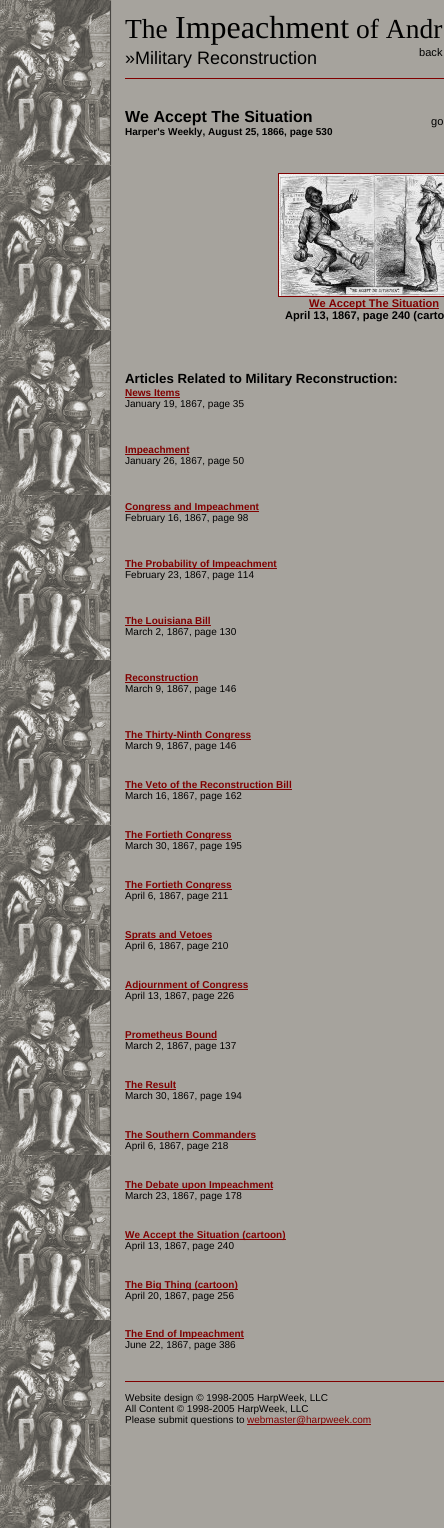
import math
import cairocffi as cairo

surface = cairo.ImageSurface(cairo.FORMAT_RGB24, 444, 1528)
ctx = cairo.Context(surface)
options = cairo.FontOptions()
options.set_hint_metrics(cairo.HINT_METRICS_OFF)
options.set_hint_style(cairo.HINT_STYLE_NONE)
ctx.set_font_options(options)
ctx.set_miter_limit(4)


def rgb(r, g, b):
    ctx.set_source_rgb(r / 255, g / 255, b / 255)


def face(family, size, italic, bold):
    ctx.select_font_face(family, cairo.FONT_SLANT_ITALIC if italic else cairo.FONT_SLANT_NORMAL, cairo.FONT_WEIGHT_BOLD if bold else cairo.FONT_WEIGHT_NORMAL)
    ctx.set_font_size(size)


def label(x, y, s):
    ctx.move_to(x, y)
    ctx.show_text(s)


def rect(x, y, w, h):
    ctx.rectangle(x, y, w, h)
    ctx.fill()


def image(path, x, y, w, h):
    ctx.save()
    ctx.set_source_surface(cairo.ImageSurface.create_from_png(path), x, y)
    ctx.rectangle(x, y, w, h)
    ctx.fill()
    ctx.restore()


rgb(255, 255, 255)
ctx.paint()
image('image0.png', 0, 0, 444, 1528)
face('Liberation Serif', 27.5, 0, 0)
rgb(0, 0, 0)
label(125, 38, 'The')
face('Liberation Serif', 32, 0, 0)
label(175, 38, 'Impeachment')
face('Liberation Serif', 27.5, 0, 0)
label(356, 38, 'of Andr')
face('Liberation Sans', 18, 0, 0)
label(125, 64, '»Military Reconstruction')
face('Liberation Sans', 11.1, 0, 0)
label(419, 56, 'back')
rgb(128, 0, 0)
rect(125, 78, 319, 1)
face('Liberation Sans', 16, 0, 1)
rgb(0, 0, 0)
label(125, 122, 'We Accept The Situation')
face('Liberation Sans', 10, 0, 1)
label(125, 135, 'Harper\'s Weekly, August 25, 1866, page 530')
face('Liberation Sans', 11.1, 0, 0)
label(431, 125, 'go')
ctx.rectangle(278.5, 173.5, 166, 123)
rgb(128, 0, 0)
ctx.set_line_width(1)
ctx.stroke()
image('image1.png', 279, 174, 165, 122)
rect(309, 308, 130, 1)
face('Liberation Sans', 11.1, 0, 1)
label(309, 307, 'We Accept The Situation')
rgb(0, 0, 0)
label(285, 319, 'April 13, 1867, page 240 (carto')
face('Liberation Sans', 13.3, 0, 1)
label(125, 383, 'Articles Related to Military Reconstruction:')
face('Liberation Sans', 10, 0, 1)
rgb(128, 0, 0)
label(125, 396, 'News Items')
rect(125, 397, 55, 1)
face('Liberation Sans', 10, 0, 0)
rgb(0, 0, 0)
label(125, 407, 'January 19, 1867, page 35')
rgb(128, 0, 0)
rect(125, 454, 64, 1)
face('Liberation Sans', 10, 0, 1)
label(125, 453, 'Impeachment')
face('Liberation Sans', 10, 0, 0)
rgb(0, 0, 0)
label(125, 464, 'January 26, 1867, page 50')
rgb(128, 0, 0)
rect(125, 511, 134, 1)
face('Liberation Sans', 10, 0, 1)
label(125, 510, 'Congress and Impeachment')
face('Liberation Sans', 10, 0, 0)
rgb(0, 0, 0)
label(125, 521, 'February 16, 1867, page 98')
rgb(128, 0, 0)
rect(125, 568, 152, 1)
face('Liberation Sans', 10, 0, 1)
label(125, 567, 'The Probability of Impeachment')
face('Liberation Sans', 10, 0, 0)
rgb(0, 0, 0)
label(125, 578, 'February 23, 1867, page 114')
face('Liberation Sans', 10, 0, 1)
rgb(128, 0, 0)
label(125, 624, 'The Louisiana Bill')
rect(125, 625, 86, 1)
face('Liberation Sans', 10, 0, 0)
rgb(0, 0, 0)
label(125, 635, 'March 2, 1867, page 130')
face('Liberation Sans', 10, 0, 1)
rgb(128, 0, 0)
label(125, 681, 'Reconstruction')
rect(125, 682, 73, 1)
face('Liberation Sans', 10, 0, 0)
rgb(0, 0, 0)
label(125, 692, 'March 9, 1867, page 146')
rgb(128, 0, 0)
rect(125, 739, 126, 1)
face('Liberation Sans', 10, 0, 1)
label(125, 738, 'The Thirty-Ninth Congress')
face('Liberation Sans', 10, 0, 0)
rgb(0, 0, 0)
label(125, 749, 'March 9, 1867, page 146')
face('Liberation Sans', 10, 0, 1)
rgb(128, 0, 0)
label(125, 788, 'The Veto of the Reconstruction Bill')
rect(125, 789, 167, 1)
face('Liberation Sans', 10, 0, 0)
rgb(0, 0, 0)
label(125, 799, 'March 16, 1867, page 162')
rgb(128, 0, 0)
rect(125, 839, 107, 1)
face('Liberation Sans', 10, 0, 1)
label(125, 838, 'The Fortieth Congress')
face('Liberation Sans', 10, 0, 0)
rgb(0, 0, 0)
label(125, 849, 'March 30, 1867, page 195')
rgb(128, 0, 0)
rect(125, 889, 107, 1)
face('Liberation Sans', 10, 0, 1)
label(125, 888, 'The Fortieth Congress')
face('Liberation Sans', 10, 0, 0)
rgb(0, 0, 0)
label(125, 899, 'April 6, 1867, page 211')
rgb(128, 0, 0)
rect(125, 939, 87, 1)
face('Liberation Sans', 10, 0, 1)
label(125, 938, 'Sprats and Vetoes')
face('Liberation Sans', 10, 0, 0)
rgb(0, 0, 0)
label(125, 949, 'April 6, 1867, page 210')
rgb(128, 0, 0)
rect(125, 989, 123, 1)
face('Liberation Sans', 10, 0, 1)
label(125, 988, 'Adjournment of Congress')
face('Liberation Sans', 10, 0, 0)
rgb(0, 0, 0)
label(125, 999, 'April 13, 1867, page 226')
face('Liberation Sans', 10, 0, 1)
rgb(128, 0, 0)
label(125, 1038, 'Prometheus Bound')
rect(125, 1039, 92, 1)
face('Liberation Sans', 10, 0, 0)
rgb(0, 0, 0)
label(125, 1049, 'March 2, 1867, page 137')
face('Liberation Sans', 10, 0, 1)
rgb(128, 0, 0)
label(125, 1088, 'The Result')
rect(125, 1089, 51, 1)
face('Liberation Sans', 10, 0, 0)
rgb(0, 0, 0)
label(125, 1099, 'March 30, 1867, page 194')
face('Liberation Sans', 10, 0, 1)
rgb(128, 0, 0)
label(125, 1138, 'The Southern Commanders')
rect(125, 1139, 131, 1)
face('Liberation Sans', 10, 0, 0)
rgb(0, 0, 0)
label(125, 1149, 'April 6, 1867, page 218')
rgb(128, 0, 0)
rect(125, 1189, 148, 1)
face('Liberation Sans', 10, 0, 1)
label(125, 1188, 'The Debate upon Impeachment')
face('Liberation Sans', 10, 0, 0)
rgb(0, 0, 0)
label(125, 1199, 'March 23, 1867, page 178')
rgb(128, 0, 0)
rect(125, 1239, 161, 1)
face('Liberation Sans', 10, 0, 1)
label(125, 1238, 'We Accept the Situation (cartoon)')
face('Liberation Sans', 10, 0, 0)
rgb(0, 0, 0)
label(125, 1249, 'April 13, 1867, page 240')
rgb(128, 0, 0)
rect(125, 1289, 113, 1)
face('Liberation Sans', 10, 0, 1)
label(125, 1288, 'The Big Thing (cartoon)')
face('Liberation Sans', 10, 0, 0)
rgb(0, 0, 0)
label(125, 1299, 'April 20, 1867, page 256')
rgb(128, 0, 0)
rect(125, 1338, 119, 1)
face('Liberation Sans', 10, 0, 1)
label(125, 1337, 'The End of Impeachment')
face('Liberation Sans', 10, 0, 0)
rgb(0, 0, 0)
label(125, 1348, 'June 22, 1867, page 386')
rgb(128, 0, 0)
rect(125, 1381, 319, 1)
rgb(0, 0, 0)
label(125, 1401, 'Website design © 1998-2005 HarpWeek, LLC')
label(125, 1412, 'All Content © 1998-2005 HarpWeek, LLC')
label(125, 1423, 'Please submit questions to')
rgb(128, 0, 0)
rect(247, 1424, 124, 1)
label(247, 1423, 'webmaster@harpweek.com')
surface.write_to_png('render.png')
